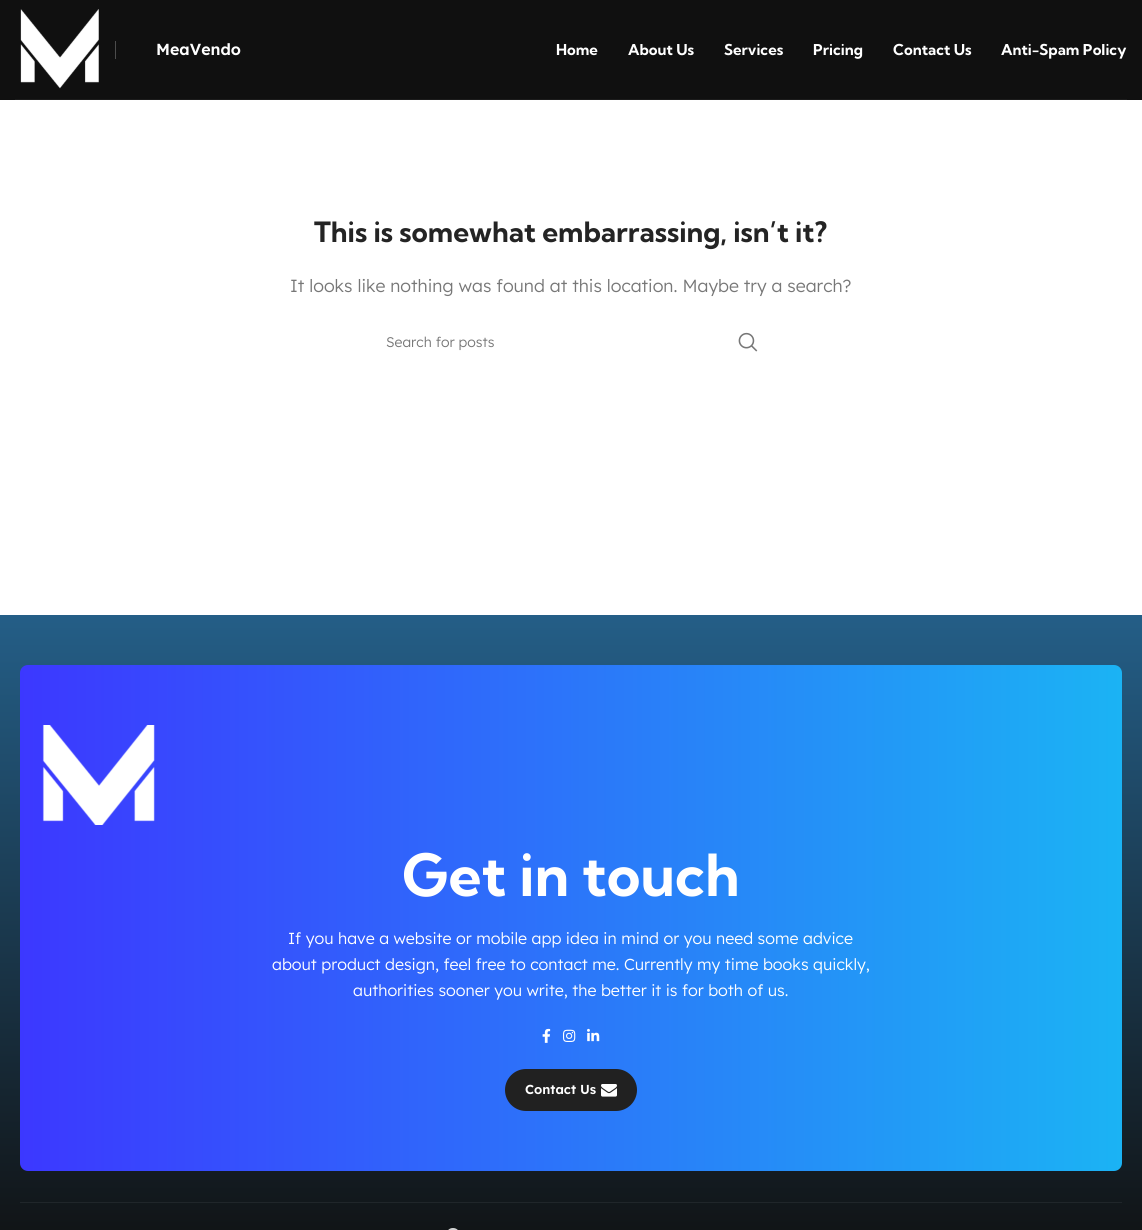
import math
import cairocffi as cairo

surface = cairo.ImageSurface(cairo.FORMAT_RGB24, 1142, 1230)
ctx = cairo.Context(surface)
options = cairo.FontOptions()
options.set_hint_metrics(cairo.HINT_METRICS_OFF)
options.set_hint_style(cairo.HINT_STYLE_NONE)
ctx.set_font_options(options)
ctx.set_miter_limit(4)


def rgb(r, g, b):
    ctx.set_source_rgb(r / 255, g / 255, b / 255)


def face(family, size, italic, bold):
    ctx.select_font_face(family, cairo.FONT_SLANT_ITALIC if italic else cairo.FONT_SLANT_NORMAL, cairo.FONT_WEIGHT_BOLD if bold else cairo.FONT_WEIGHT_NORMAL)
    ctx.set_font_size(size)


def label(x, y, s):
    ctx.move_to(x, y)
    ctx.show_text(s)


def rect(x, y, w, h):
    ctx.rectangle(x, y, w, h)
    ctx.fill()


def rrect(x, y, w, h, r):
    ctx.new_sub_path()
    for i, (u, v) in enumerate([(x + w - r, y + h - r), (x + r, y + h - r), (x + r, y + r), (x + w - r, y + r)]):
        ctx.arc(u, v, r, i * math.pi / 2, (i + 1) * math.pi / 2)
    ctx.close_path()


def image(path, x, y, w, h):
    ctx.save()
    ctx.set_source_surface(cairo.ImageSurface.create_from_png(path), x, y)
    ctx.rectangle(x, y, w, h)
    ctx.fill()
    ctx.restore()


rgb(255, 255, 255)
ctx.paint()
rgb(16, 16, 16)
rect(0, 0, 1142, 100)
rgb(28, 28, 28)
rect(15, 99, 1112, 1)
image('image0.png', 20, 9, 79, 80)
rgb(76, 76, 76)
rect(115, 41, 1, 18)
face('Lexend SemiBold', 16, 0, 0)
rgb(255, 255, 255)
label(156, 55, 'MeaVendo')
face('Kumbh Sans', 15, 0, 1)
label(556, 55, 'Home')
label(628, 55, 'About Us')
label(724, 55, 'Services')
label(813, 55, 'Pricing')
label(893, 55, 'Contact Us')
label(1001, 55, 'Anti-Spam Policy')
face('Kumbh Sans', 28, 0, 1)
rgb(36, 36, 36)
label(314, 242, 'This is somewhat embarrassing, isn’t it?')
face('Lexend Light', 17.6, 0, 0)
rgb(119, 119, 119)
label(290, 292, 'It looks like nothing was found at this location. Maybe try a search?')
face('Lexend Light', 14, 0, 0)
label(386, 347, 'Search for posts')
image('image1.png', 738, 332, 20, 20)
gradient = cairo.LinearGradient(571, 615, 571, 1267)
gradient.add_color_stop_rgba(0, 0.141, 0.369, 0.529, 1)
gradient.add_color_stop_rgba(1, 0.063, 0.063, 0.063, 1)
ctx.set_source(gradient)
rect(0, 615, 1142, 615)
gradient = cairo.LinearGradient(20, 918, 1122, 918)
gradient.add_color_stop_rgba(0, 0.235, 0.22, 1, 1)
gradient.add_color_stop_rgba(1, 0.106, 0.702, 0.957, 1)
ctx.set_source(gradient)
rrect(20, 665, 1102, 506, 8)
ctx.fill()
image('image2.png', 42, 725, 113, 100)
face('Kumbh Sans', 58, 0, 1)
rgb(255, 255, 255)
label(402, 896, 'Get in touch')
face('Lexend Light', 16, 0, 0)
label(288, 944, 'If you have a website or mobile app idea in mind or you need some advice')
label(272, 970, 'about product design, feel free to contact me. Currently my time books quickly,')
label(353, 996, 'authorities sooner you write, the better it is for both of us.')
image('image3.png', 542, 1028, 9, 15)
image('image4.png', 563, 1029, 13, 13)
image('image5.png', 587, 1028, 13, 14)
rgb(33, 33, 33)
rrect(505, 1069, 132, 42, 21)
ctx.fill()
face('Lexend SemiBold', 13, 0, 0)
rgb(255, 255, 255)
label(525, 1094, 'Contact Us')
image('image6.png', 601, 1084, 16, 13)
rgb(32, 38, 42)
rect(20, 1202, 1102, 1)
image('image7.png', 448, 1228, 10, 2)
surface.write_to_png('render.png')
